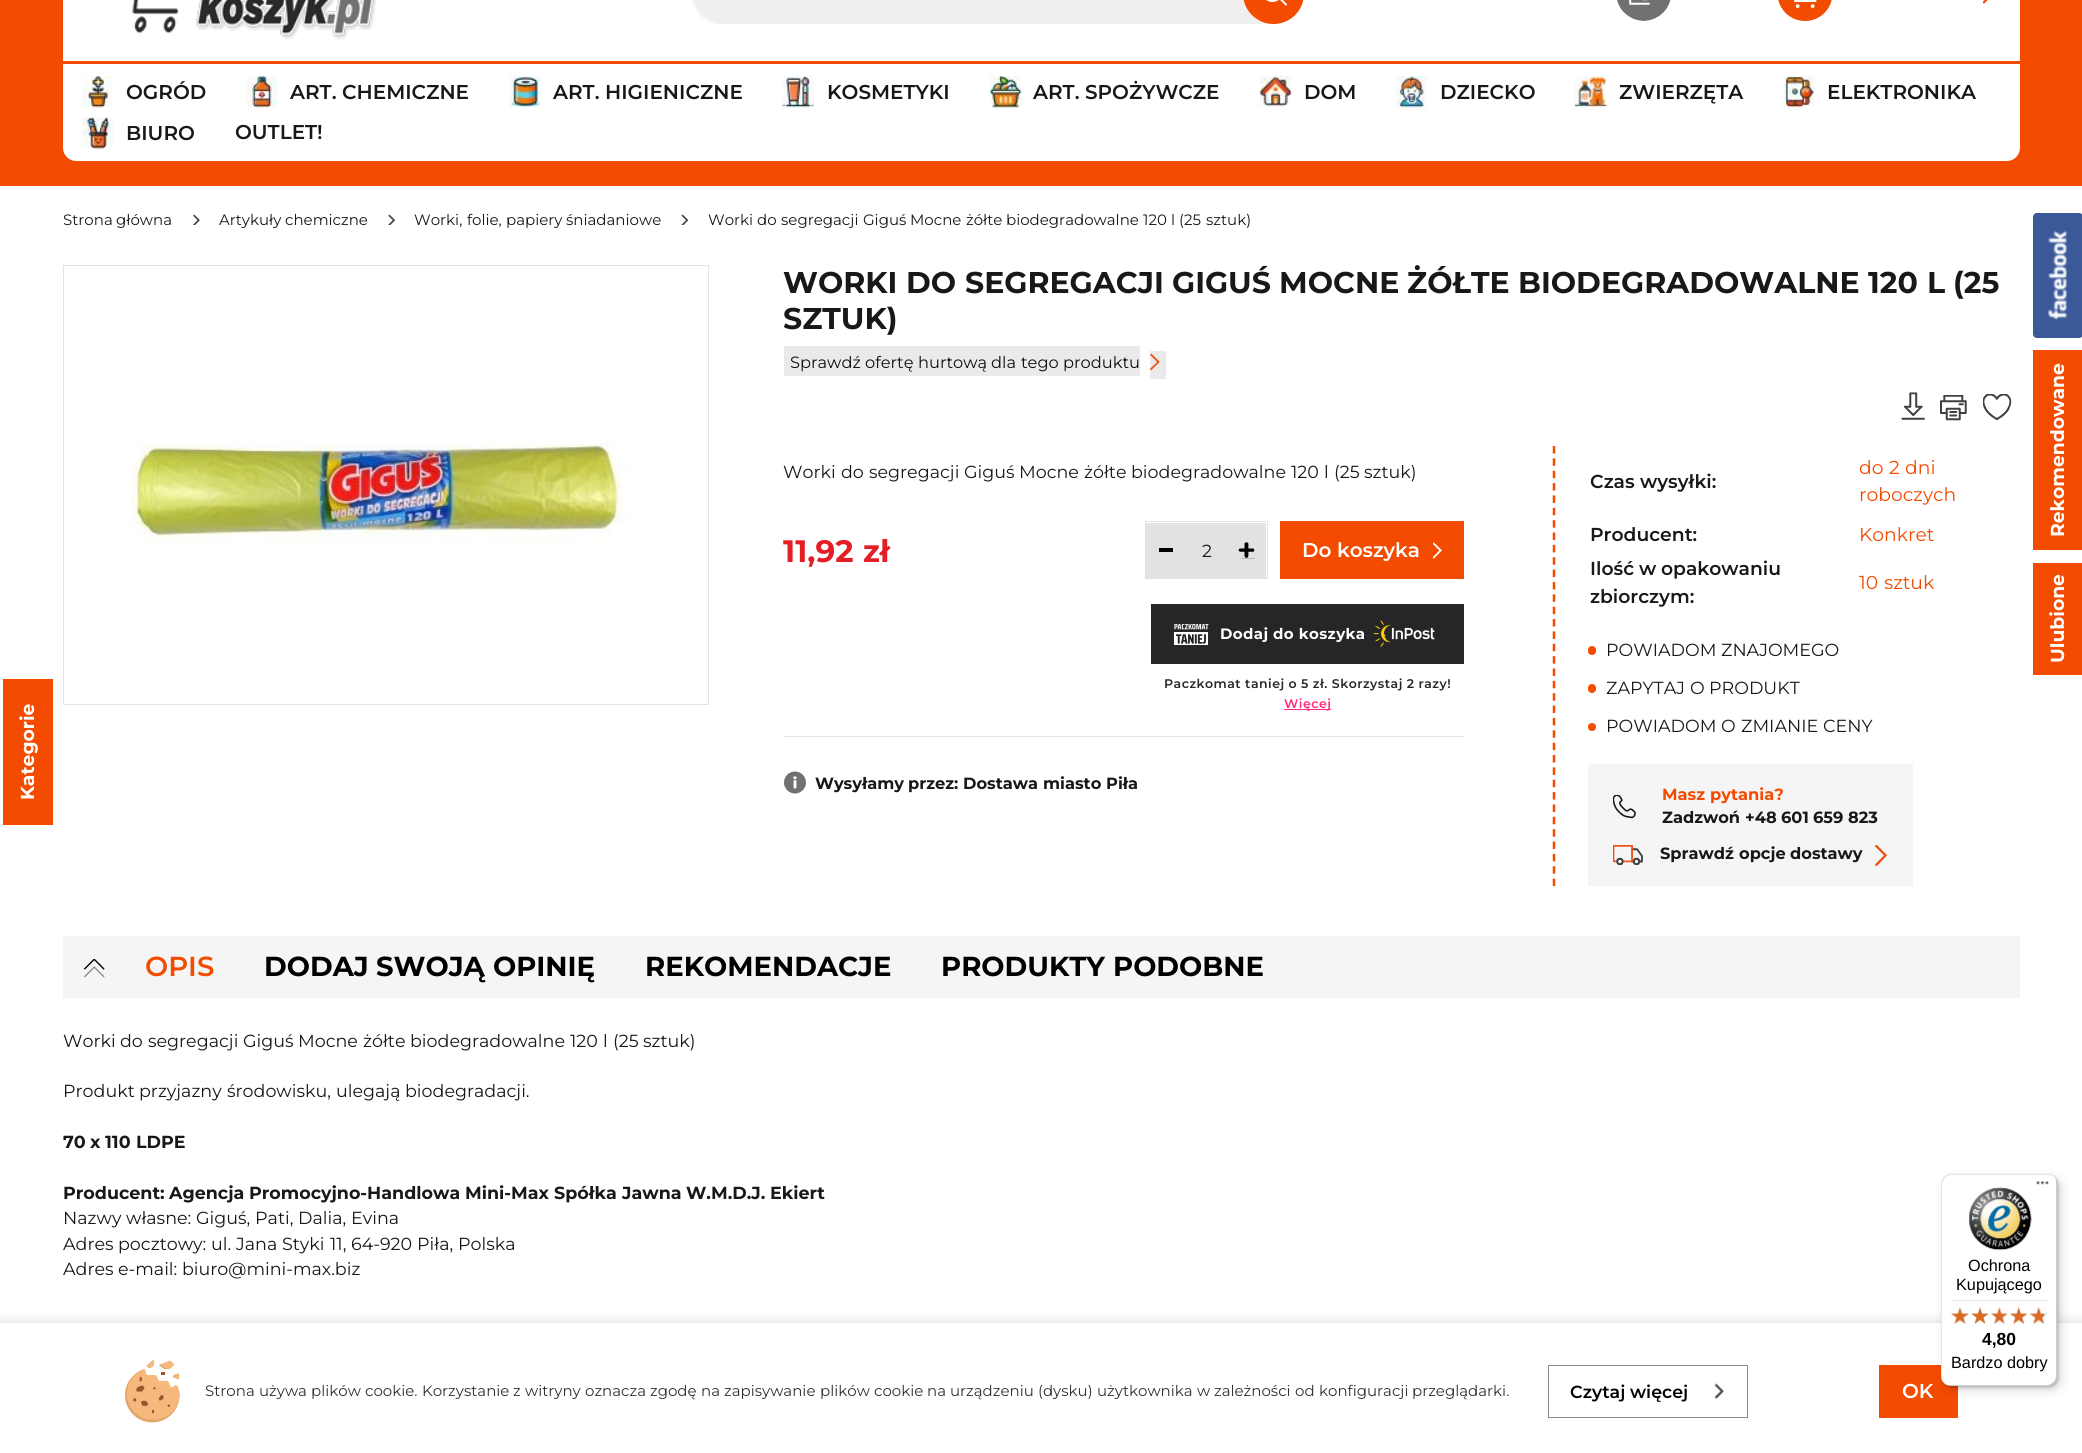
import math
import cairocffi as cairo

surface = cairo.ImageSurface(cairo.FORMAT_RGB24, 2082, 1453)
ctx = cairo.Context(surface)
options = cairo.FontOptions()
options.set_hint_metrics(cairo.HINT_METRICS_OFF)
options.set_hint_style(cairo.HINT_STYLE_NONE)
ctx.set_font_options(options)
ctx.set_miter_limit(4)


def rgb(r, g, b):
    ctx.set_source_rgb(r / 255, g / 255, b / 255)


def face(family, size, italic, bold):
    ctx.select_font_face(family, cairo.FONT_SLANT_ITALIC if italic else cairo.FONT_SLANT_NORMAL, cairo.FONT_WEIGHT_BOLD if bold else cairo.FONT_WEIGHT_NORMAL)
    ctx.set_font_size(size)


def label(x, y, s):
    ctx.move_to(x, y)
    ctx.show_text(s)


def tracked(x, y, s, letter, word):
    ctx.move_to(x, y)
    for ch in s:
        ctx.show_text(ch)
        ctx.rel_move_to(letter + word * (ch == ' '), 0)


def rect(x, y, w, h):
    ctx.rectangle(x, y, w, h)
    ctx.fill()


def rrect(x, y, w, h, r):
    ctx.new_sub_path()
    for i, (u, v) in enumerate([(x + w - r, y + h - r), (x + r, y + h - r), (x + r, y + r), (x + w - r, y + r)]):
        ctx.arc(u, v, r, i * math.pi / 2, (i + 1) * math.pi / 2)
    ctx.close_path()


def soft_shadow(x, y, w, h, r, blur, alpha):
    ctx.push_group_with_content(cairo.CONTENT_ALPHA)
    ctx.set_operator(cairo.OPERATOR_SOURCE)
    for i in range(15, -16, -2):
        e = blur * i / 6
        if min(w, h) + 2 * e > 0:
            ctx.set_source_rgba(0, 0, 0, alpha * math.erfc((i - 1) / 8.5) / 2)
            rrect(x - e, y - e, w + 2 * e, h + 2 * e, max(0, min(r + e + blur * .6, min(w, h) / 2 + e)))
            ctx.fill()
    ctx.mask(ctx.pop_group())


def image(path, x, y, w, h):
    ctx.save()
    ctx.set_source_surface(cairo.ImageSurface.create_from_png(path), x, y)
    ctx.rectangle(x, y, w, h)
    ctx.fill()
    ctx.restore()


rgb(255, 255, 255)
ctx.paint()
rgb(243, 75, 0)
rect(0, 0, 2082, 186)
rgb(255, 255, 255)
rect(63, 0, 1957, 61)
image('image0.png', 132, 0, 245, 40)
rgb(239, 239, 239)
rrect(693, -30, 610, 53, 29.5)
ctx.fill()
rrect(691.5, -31.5, 612, 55, 30)
ctx.set_line_width(1)
ctx.stroke()
rgb(243, 75, 0)
rrect(1243, -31, 61, 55, 30.5)
ctx.fill()
ctx.arc(1272.5, -9, 10, 0, 2 * math.pi)
rgb(255, 255, 255)
ctx.set_line_width(2)
ctx.stroke()
ctx.new_path()
ctx.move_to(1280, -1.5)
ctx.line_to(1286, 4.5)
ctx.set_line_cap(cairo.LINE_CAP_ROUND)
ctx.set_line_join(cairo.LINE_JOIN_ROUND)
ctx.stroke()
image('image1.png', 1617, 0, 54, 21)
rgb(242, 76, 0)
ctx.arc(1805, -6.5, 27.5, 0, 2 * math.pi)
ctx.fill()
rgb(255, 255, 255)
ctx.arc(1797.7, 6.1, 1.9, 0, 2 * math.pi)
ctx.fill()
ctx.arc(1812.7, 6.1, 1.9, 0, 2 * math.pi)
ctx.fill()
ctx.new_path()
ctx.move_to(1820, -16.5)
ctx.line_to(1817, -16.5)
ctx.line_to(1814, -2.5)
ctx.line_to(1815.5, 1)
ctx.line_to(1795, 1)
ctx.stroke()
image('image2.png', 1983, 0, 5, 4)
ctx.new_path()
ctx.move_to(63, 61)
ctx.line_to(2020, 61)
ctx.line_to(2020, 148)
ctx.curve_to(2020, 155, 2014, 161, 2007, 161)
ctx.line_to(76, 161)
ctx.curve_to(69, 161, 63, 155, 63, 148)
ctx.close_path()
ctx.fill()
rgb(243, 75, 0)
rect(63, 61, 1957, 3)
image('image3.png', 82, 76, 32, 32)
face('Montserrat SemiBold', 20, 0, 0)
rgb(24, 24, 24)
label(126, 99, 'OGRÓD')
image('image4.png', 246, 76, 32, 32)
label(290, 99, 'ART.')
label(342, 99, 'CHEMICZNE')
image('image5.png', 510, 76, 32, 32)
label(553, 99, 'ART.')
label(605, 99, 'HIGIENICZNE')
image('image6.png', 782, 76, 32, 32)
label(827, 99, 'KOSMETYKI')
image('image7.png', 990, 76, 32, 32)
label(1033, 99, 'ART.')
label(1085, 99, 'SPOŻYWCZE')
image('image8.png', 1260, 76, 32, 31)
label(1304, 99, 'DOM')
image('image9.png', 1396, 76, 32, 32)
label(1440, 99, 'DZIECKO')
image('image10.png', 1575, 76, 32, 32)
label(1619, 99, 'ZWIERZĘTA')
image('image11.png', 1783, 76, 32, 32)
label(1827, 99, 'ELEKTRONIKA')
image('image12.png', 82, 117, 32, 32)
label(126, 140, 'BIURO')
label(235, 139, 'OUTLET!')
face('Montserrat', 15, 0, 0)
label(63, 225, 'Strona')
label(116, 225, 'główna')
image('image13.png', 193, 214, 7, 11)
label(219, 225, 'Artykuły')
label(285, 225, 'chemiczne')
image('image14.png', 388, 214, 7, 11)
label(414, 225, 'Worki,')
label(467, 225, 'folie,')
label(506, 225, 'papiery')
label(566, 225, 'śniadaniowe')
image('image15.png', 681, 214, 8, 11)
label(708, 225, 'Worki')
label(757, 225, 'do')
label(781, 225, 'segregacji')
label(863, 225, 'Giguś')
label(910, 225, 'Mocne')
label(966, 225, 'żółte')
label(1006, 225, 'biodegradowalne')
label(1143, 225, '120')
label(1171, 225, 'l')
label(1179, 225, '(25')
label(1206, 225, 'sztuk)')
rgb(243, 75, 0)
rect(3, 679, 50, 146)
face('Montserrat', 18.75, 0, 1)
rgb(255, 255, 255)
ctx.save()
ctx.translate(34, 800)
ctx.rotate(-90 * math.pi / 180)
label(0, 0, 'Kategorie')
ctx.restore()
ctx.rectangle(63.5, 265.5, 645, 439)
rgb(227, 227, 227)
ctx.set_line_width(1)
ctx.set_line_cap(cairo.LINE_CAP_BUTT)
ctx.set_line_join(cairo.LINE_JOIN_MITER)
ctx.stroke()
image('image16.png', 130, 443, 500, 101)
face('Montserrat', 30, 0, 1)
rgb(24, 24, 24)
label(783, 293, 'WORKI')
label(906, 293, 'DO')
label(965, 293, 'SEGREGACJI')
label(1172, 293, 'GIGUŚ')
label(1279, 293, 'MOCNE')
label(1407, 293, 'ŻÓŁTE')
label(1518, 293, 'BIODEGRADOWALNE')
label(1868, 293, '120')
label(1927, 293, 'L')
label(1953, 293, '(25')
label(783, 329, 'SZTUK)')
rgb(234, 234, 234)
rect(784, 346, 356, 30)
rect(1150, 351, 16, 28)
face('Montserrat', 16.25, 0, 0)
rgb(15, 15, 15)
label(790, 368, 'Sprawdź')
label(865, 368, 'ofertę')
label(918, 368, 'hurtową')
label(991, 368, 'dla')
label(1021, 368, 'tego')
label(1063, 368, 'produktu')
image('image17.png', 1150, 354, 10, 17)
image('image18.png', 1901, 392, 24, 28)
image('image19.png', 1940, 395, 27, 26)
image('image20.png', 1983, 394, 29, 27)
face('Montserrat', 17.5, 0, 0)
rgb(24, 24, 24)
label(783, 478, 'Worki')
label(841, 478, 'do')
label(869, 478, 'segregacji')
label(964, 478, 'Giguś')
label(1019, 478, 'Mocne')
label(1084, 478, 'żółte')
label(1131, 478, 'biodegradowalne')
label(1291, 478, '120')
label(1324, 478, 'l')
label(1334, 478, '(25')
label(1364, 478, 'sztuk)')
rgb(227, 227, 227)
rect(784, 736, 680, 1)
face('Montserrat', 31, 0, 1)
rgb(227, 30, 36)
label(783, 562, '11,92')
label(863, 562, 'zł')
ctx.rectangle(1145.5, 521.5, 122, 57)
rgb(226, 226, 226)
ctx.stroke()
rect(1146, 523, 120, 55)
rgb(0, 0, 0)
rect(1159, 548, 14, 4)
face('Montserrat', 17.5, 0, 0)
rgb(24, 24, 24)
label(1202, 557, '2')
image('image21.png', 1238, 542, 17, 17)
rgb(243, 75, 0)
rect(1280, 521, 184, 58)
face('Montserrat SemiBold', 20, 0, 0)
rgb(255, 255, 255)
label(1302, 557, 'Do')
label(1337, 557, 'koszyka')
image('image22.png', 1433, 542, 9, 17)
rgb(38, 38, 40)
rect(1151, 604, 313, 60)
image('image23.png', 1174, 624, 35, 21)
face('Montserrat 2', 15, 0, 1)
rgb(255, 255, 255)
tracked(1220, 639, 'Dodaj do koszyka', 0.4, 0)
image('image24.png', 1373, 620, 62, 28)
face('Montserrat 2 SemiBold', 12.5, 0, 0)
rgb(38, 38, 40)
tracked(1164, 688, 'Paczkomat taniej o 5 zł. Skorzystaj 2 razy!', 0.5, 0)
rgb(255, 43, 126)
rect(1284, 709, 47, 1)
tracked(1284, 708, 'Więcej', 0.5, 0)
image('image25.png', 784, 771, 22, 23)
face('Montserrat', 16.25, 0, 1)
rgb(24, 24, 24)
label(815, 789, 'Wysyłamy')
label(908, 789, 'przez:')
label(963, 789, 'Dostawa')
label(1043, 789, 'miasto')
label(1106, 789, 'Piła')
ctx.new_path()
ctx.move_to(1554, 446)
ctx.line_to(1554, 886)
rgb(243, 75, 0)
ctx.set_line_width(2.5)
ctx.set_dash([7.5, 4.86])
ctx.stroke()
face('Montserrat SemiBold', 18.75, 0, 0)
rgb(24, 24, 24)
label(1590, 488, 'Czas')
label(1640, 488, 'wysyłki:')
face('Montserrat', 18.75, 0, 0)
rgb(243, 75, 0)
label(1859, 474, 'do')
label(1889, 474, '2')
label(1905, 474, 'dni')
label(1859, 501, 'roboczych')
face('Montserrat SemiBold', 18.75, 0, 0)
rgb(24, 24, 24)
label(1590, 541, 'Producent:')
face('Montserrat', 18.75, 0, 0)
rgb(243, 75, 0)
label(1859, 541, 'Konkret')
face('Montserrat SemiBold', 18.75, 0, 0)
rgb(24, 24, 24)
label(1590, 575, 'Ilość')
label(1639, 575, 'w')
label(1661, 575, 'opakowaniu')
label(1590, 603, 'zbiorczym:')
face('Montserrat', 18.75, 0, 0)
rgb(243, 75, 0)
label(1859, 589, '10')
label(1884, 589, 'sztuk')
rrect(1588, 646, 8, 9, 4)
ctx.fill()
face('Montserrat', 17.5, 0, 0)
rgb(24, 24, 24)
label(1606, 656, 'POWIADOM')
label(1721, 656, 'ZNAJOMEGO')
rgb(243, 75, 0)
rrect(1588, 684, 8, 9, 4)
ctx.fill()
rgb(24, 24, 24)
label(1606, 694, 'ZAPYTAJ')
label(1690, 694, 'O')
label(1709, 694, 'PRODUKT')
rgb(243, 75, 0)
ctx.new_path()
ctx.arc(1592, 727, 4, 0, 2 * math.pi)
ctx.fill()
rgb(24, 24, 24)
label(1606, 732, 'POWIADOM')
label(1721, 732, 'O')
label(1741, 732, 'ZMIANIE')
label(1823, 732, 'CENY')
rgb(245, 245, 245)
rect(1588, 764, 325, 122)
image('image26.png', 1613, 795, 23, 24)
face('Montserrat', 16.25, 0, 1)
rgb(243, 75, 0)
label(1662, 800, 'Masz')
label(1710, 800, 'pytania?')
rgb(24, 24, 24)
label(1662, 823, 'Zadzwoń')
label(1745, 823, '+48')
label(1781, 823, '601')
label(1813, 823, '659')
label(1848, 823, '823')
image('image27.png', 1613, 845, 30, 20)
label(1660, 859, 'Sprawdź')
label(1739, 859, 'opcje')
label(1790, 859, 'dostawy')
image('image28.png', 1875, 845, 12, 21)
rgb(245, 245, 245)
rect(63, 936, 1957, 62)
image('image29.png', 84, 959, 21, 19)
face('Montserrat SemiBold', 27.5, 0, 0)
rgb(243, 75, 0)
label(145, 976, 'OPIS')
face('Montserrat', 27.5, 0, 1)
rgb(0, 0, 0)
label(264, 976, 'DODAJ')
label(376, 976, 'SWOJĄ')
label(493, 976, 'OPINIĘ')
label(645, 976, 'REKOMENDACJE')
label(941, 976, 'PRODUKTY')
label(1113, 976, 'PODOBNE')
face('Montserrat', 17.5, 0, 0)
rgb(24, 24, 24)
label(63, 1047, 'Worki')
label(120, 1047, 'do')
label(148, 1047, 'segregacji')
label(243, 1047, 'Giguś')
label(298, 1047, 'Mocne')
label(363, 1047, 'żółte')
label(410, 1047, 'biodegradowalne')
label(570, 1047, '120')
label(603, 1047, 'l')
label(613, 1047, '(25')
label(643, 1047, 'sztuk)')
label(63, 1097, 'Produkt')
label(139, 1097, 'przyjazny')
label(227, 1097, 'środowisku,')
label(336, 1097, 'ulegają')
label(405, 1097, 'biodegradacji.')
face('Montserrat', 17.5, 0, 1)
label(63, 1148, '70')
label(90, 1148, 'x')
label(105, 1148, '110')
label(136, 1148, 'LDPE')
label(63, 1199, 'Producent:')
label(169, 1199, 'Agencja')
label(249, 1199, 'Promocyjno-Handlowa')
label(465, 1199, 'Mini-Max')
label(554, 1199, 'Spółka')
label(622, 1199, 'Jawna')
label(686, 1199, 'W.M.D.J.')
label(770, 1199, 'Ekiert')
face('Montserrat', 17.5, 0, 0)
label(63, 1224, 'Nazwy')
label(126, 1224, 'własne:')
label(196, 1224, 'Giguś,')
label(255, 1224, 'Pati,')
label(298, 1224, 'Dalia,')
label(351, 1224, 'Evina')
label(63, 1250, 'Adres')
label(118, 1250, 'pocztowy:')
label(211, 1250, 'ul.')
label(236, 1250, 'Jana')
label(282, 1250, 'Styki')
label(330, 1250, '11,')
label(351, 1250, '64-920')
label(417, 1250, 'Piła,')
label(458, 1250, 'Polska')
label(63, 1275, 'Adres')
label(118, 1275, 'e-mail:')
label(182, 1275, 'biuro@mini-max.biz')
rgb(59, 89, 152)
rrect(2033, 213, 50, 125, 4)
ctx.fill()
image('image30.png', 2048, 230, 19, 90)
rgb(243, 75, 0)
rect(2033, 350, 49, 200)
face('Montserrat', 18.75, 0, 1)
rgb(255, 255, 255)
ctx.save()
ctx.translate(2064, 537)
ctx.rotate(-90 * math.pi / 180)
label(0, 0, 'Rekomendowane')
ctx.restore()
rgb(243, 75, 0)
rect(2033, 563, 49, 112)
rgb(255, 255, 255)
ctx.save()
ctx.translate(2064, 663)
ctx.rotate(-90 * math.pi / 180)
label(0, 0, 'Ulubione')
ctx.restore()
rgb(0, 0, 0)
soft_shadow(0, 1324, 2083, 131, 0, 7, 0.2)
rgb(255, 255, 255)
rect(0, 1323, 2082, 130)
rgb(243, 75, 0)
rect(1879, 1365, 79, 53)
rgb(0, 0, 0)
soft_shadow(1945, 1178, 116, 212, 10, 5, 0.15)
soft_shadow(1943, 1175, 116, 213, 10, 1, 0.15)
rgb(255, 255, 255)
rrect(1941, 1174, 117, 212, 10)
ctx.fill()
ctx.set_source_rgba(0, 0, 0, 0.1)
ctx.new_path()
ctx.move_to(1952, 1175)
ctx.line_to(2049, 1175)
ctx.curve_to(2051, 1175, 2054, 1176, 2056, 1178)
ctx.curve_to(2054, 1175, 2051, 1174, 2048, 1174)
ctx.line_to(1951, 1174)
ctx.curve_to(1945, 1174, 1941, 1178, 1941, 1184)
ctx.line_to(1941, 1376)
ctx.curve_to(1941, 1378, 1942, 1380, 1943, 1382)
ctx.curve_to(1942, 1381, 1942, 1379, 1942, 1378)
ctx.line_to(1942, 1185)
ctx.curve_to(1942, 1179, 1947, 1175, 1952, 1175)
ctx.close_path()
ctx.fill()
ctx.set_source_rgba(0, 0, 0, 0.2)
ctx.new_path()
ctx.move_to(1945, 1384)
ctx.curve_to(1946, 1385, 1949, 1386, 1951, 1386)
ctx.line_to(2048, 1386)
ctx.curve_to(2054, 1386, 2058, 1382, 2058, 1376)
ctx.line_to(2058, 1184)
ctx.curve_to(2058, 1181, 2056, 1178, 2054, 1176)
ctx.curve_to(2055, 1178, 2056, 1180, 2056, 1182)
ctx.line_to(2056, 1375)
ctx.curve_to(2056, 1381, 2052, 1385, 2046, 1385)
ctx.line_to(1950, 1385)
ctx.curve_to(1948, 1385, 1946, 1385, 1945, 1384)
ctx.close_path()
ctx.fill()
ctx.set_source_rgba(0.196, 0.196, 0.196, 0.2)
ctx.new_path()
ctx.move_to(2047, 1386)
ctx.line_to(2048, 1386)
ctx.curve_to(2054, 1386, 2058, 1382, 2058, 1376)
ctx.line_to(2058, 1184)
ctx.curve_to(2058, 1181, 2057, 1178, 2055, 1176)
ctx.curve_to(2056, 1178, 2057, 1180, 2057, 1183)
ctx.line_to(2057, 1376)
ctx.curve_to(2057, 1381, 2052, 1386, 2047, 1386)
ctx.close_path()
ctx.fill()
ctx.set_source_rgba(1, 1, 1, 0.3)
ctx.new_path()
ctx.move_to(2047, 1386)
ctx.line_to(2048, 1386)
ctx.curve_to(2054, 1386, 2058, 1382, 2058, 1376)
ctx.line_to(2058, 1184)
ctx.curve_to(2058, 1180, 2056, 1177, 2053, 1175)
ctx.curve_to(2055, 1177, 2057, 1180, 2057, 1183)
ctx.line_to(2057, 1376)
ctx.curve_to(2057, 1381, 2052, 1386, 2047, 1386)
ctx.close_path()
ctx.fill()
image('image31.png', 2036, 1181, 13, 4)
image('image32.png', 1969, 1187, 63, 64)
face('Liberation Sans', 16.25, 0, 0)
rgb(0, 0, 0)
label(1968, 1271, 'Ochrona')
label(1956, 1290, 'Kupującego')
rgb(229, 229, 229)
rect(1951, 1300, 97, 1)
image('image33.png', 1951, 1308, 18, 16)
image('image34.png', 1972, 1307, 16, 17)
image('image35.png', 1991, 1308, 17, 16)
image('image36.png', 2010, 1307, 17, 17)
image('image37.png', 2030, 1308, 18, 16)
image('image38.png', 1951, 1307, 18, 17)
image('image39.png', 1971, 1307, 18, 17)
image('image40.png', 1991, 1307, 17, 17)
image('image41.png', 2010, 1307, 17, 17)
image('image42.png', 2030, 1307, 14, 17)
face('Liberation Sans', 17.5, 0, 1)
rgb(0, 0, 0)
label(1982, 1345, '4,80')
face('Liberation Sans', 16.25, 0, 0)
label(1951, 1368, 'Bardzo dobry')
image('image43.png', 125, 1360, 55, 63)
face('Montserrat', 15, 0, 0)
rgb(44, 50, 56)
label(205, 1396, 'Strona')
label(259, 1396, 'używa')
label(311, 1396, 'plików')
label(365, 1396, 'cookie.')
label(422, 1396, 'Korzystanie')
label(513, 1396, 'z')
label(525, 1396, 'witryny')
label(585, 1396, 'oznacza')
label(650, 1396, 'zgodę')
label(701, 1396, 'na')
label(724, 1396, 'zapisywanie')
label(820, 1396, 'plików')
label(874, 1396, 'cookie')
label(927, 1396, 'na')
label(950, 1396, 'urządzeniu')
label(1038, 1396, '(dysku)')
label(1097, 1396, 'użytkownika')
label(1197, 1396, 'w')
label(1214, 1396, 'zależności')
label(1295, 1396, 'od')
label(1319, 1396, 'konfiguracji')
label(1412, 1396, 'przeglądarki.')
ctx.rectangle(1548.5, 1365.5, 199, 52)
rgb(137, 137, 137)
ctx.set_line_width(1)
ctx.set_dash([])
ctx.stroke()
face('Montserrat SemiBold', 17.5, 0, 0)
rgb(0, 0, 0)
label(1570, 1398, 'Czytaj')
label(1630, 1398, 'więcej')
image('image44.png', 1714, 1383, 10, 16)
face('Montserrat SemiBold', 20, 0, 0)
rgb(255, 255, 255)
label(1902, 1398, 'OK')
surface.write_to_png('render.png')
